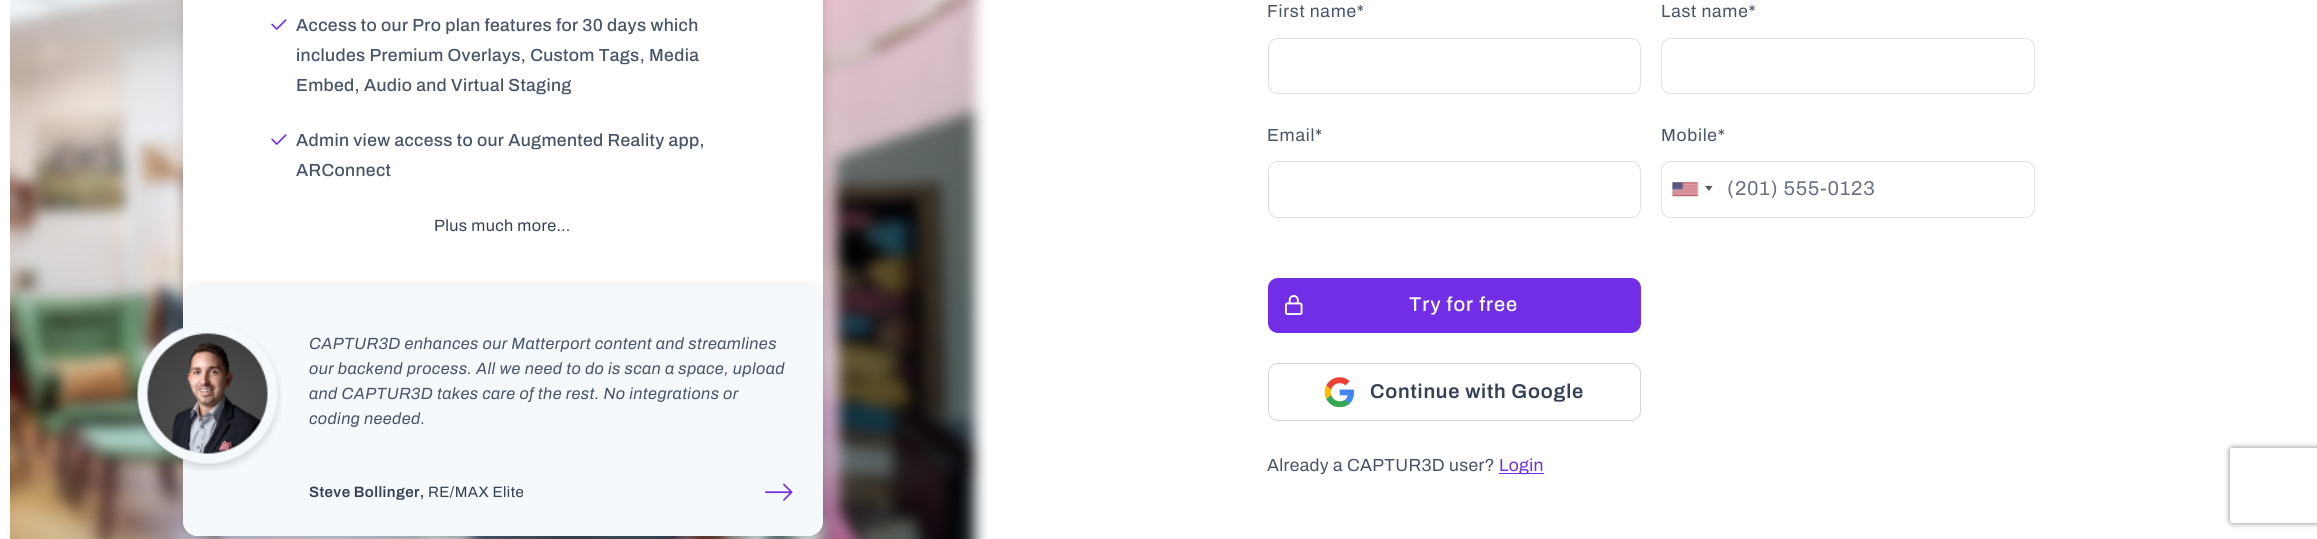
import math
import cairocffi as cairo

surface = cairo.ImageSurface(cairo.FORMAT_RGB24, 2317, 539)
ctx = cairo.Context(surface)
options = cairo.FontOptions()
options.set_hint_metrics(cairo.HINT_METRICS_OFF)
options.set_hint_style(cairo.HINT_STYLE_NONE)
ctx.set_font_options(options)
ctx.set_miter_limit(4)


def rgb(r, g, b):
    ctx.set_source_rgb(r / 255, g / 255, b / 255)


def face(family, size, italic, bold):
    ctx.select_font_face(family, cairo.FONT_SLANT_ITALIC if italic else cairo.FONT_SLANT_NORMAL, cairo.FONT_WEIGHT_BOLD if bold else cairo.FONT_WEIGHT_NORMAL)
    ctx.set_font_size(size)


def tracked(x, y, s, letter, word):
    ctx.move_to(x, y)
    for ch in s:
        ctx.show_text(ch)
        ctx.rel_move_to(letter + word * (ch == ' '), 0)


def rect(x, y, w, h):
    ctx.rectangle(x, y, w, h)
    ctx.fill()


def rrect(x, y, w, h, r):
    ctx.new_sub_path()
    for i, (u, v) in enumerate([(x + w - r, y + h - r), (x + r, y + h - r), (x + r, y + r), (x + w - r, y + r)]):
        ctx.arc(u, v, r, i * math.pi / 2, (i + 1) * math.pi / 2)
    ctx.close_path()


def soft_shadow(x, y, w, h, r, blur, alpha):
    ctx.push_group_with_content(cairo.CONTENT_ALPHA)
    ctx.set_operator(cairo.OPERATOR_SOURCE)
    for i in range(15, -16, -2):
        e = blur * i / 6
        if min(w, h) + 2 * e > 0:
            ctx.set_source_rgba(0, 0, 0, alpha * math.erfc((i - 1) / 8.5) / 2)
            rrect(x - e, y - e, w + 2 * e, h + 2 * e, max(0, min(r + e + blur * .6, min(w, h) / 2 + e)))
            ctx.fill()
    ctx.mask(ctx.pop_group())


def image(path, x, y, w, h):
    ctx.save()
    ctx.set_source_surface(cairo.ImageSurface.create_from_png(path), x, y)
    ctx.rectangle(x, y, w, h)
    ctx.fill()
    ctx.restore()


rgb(255, 255, 255)
ctx.paint()
image('image0.png', 10, 0, 978, 539)
rgb(0, 0, 0)
soft_shadow(183, -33, 640, 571, 15, 6, 0.12)
rgb(255, 255, 255)
rrect(183, -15, 640, 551, 15)
ctx.fill()
image('image1.png', 271, 19, 16, 11)
face('Archivo Medium', 17.5, 0, 0)
rgb(71, 84, 103)
tracked(296, 31, 'Access to our Pro plan features for 30 days which', 0.35, 0)
tracked(296, 61, 'includes Premium Overlays, Custom Tags, Media', 0.35, 0)
tracked(296, 91, 'Embed, Audio and Virtual Staging', 0.35, 0)
image('image1.png', 271, 134, 16, 11)
tracked(296, 146, 'Admin view access to our Augmented Reality app,', 0.35, 0)
tracked(296, 176, 'ARConnect', 0.35, 0)
face('Archivo', 16.25, 0, 0)
rgb(52, 64, 84)
tracked(434, 231, 'Plus much more…', 0.4, 0)
rgb(0, 0, 0)
soft_shadow(183, 283, 640, 250, 15, 4, 0.06)
rgb(246, 249, 252)
rrect(183, 286, 640, 250, 15)
ctx.fill()
image('image2.png', 135, 323, 147, 148)
face('Archivo', 16.25, 1, 0)
rgb(71, 84, 103)
tracked(309, 349, 'CAPTUR3D enhances our Matterport content and streamlines', 0.4, 0)
tracked(309, 374, 'our backend process. All we need to do is scan a space, upload', 0.4, 0)
tracked(309, 399, 'and CAPTUR3D takes care of the rest. No integrations or', 0.4, 0)
tracked(309, 424, 'coding needed.', 0.4, 0)
face('Archivo SemiBold', 15, 0, 0)
rgb(52, 64, 84)
tracked(309, 497, 'Steve Bollinger,', 0.4, 0)
face('Archivo', 15, 0, 0)
tracked(428, 497, 'RE/MAX Elite', 0.4, 0)
image('image3.png', 765, 483, 28, 18)
face('Archivo', 17.5, 0, 0)
rgb(71, 84, 103)
tracked(1267, 17, 'First name*', 0.75, 0)
rrect(1268.5, 38.5, 372, 55, 9.5)
rgb(221, 224, 226)
ctx.set_line_width(1)
ctx.stroke()
rgb(71, 84, 103)
tracked(1661, 17, 'Last name*', 0.75, 0)
rrect(1661.5, 38.5, 373, 55, 9.5)
rgb(221, 224, 226)
ctx.stroke()
rgb(71, 84, 103)
tracked(1267, 141, 'Email*', 0.75, 0)
rrect(1268.5, 161.5, 372, 56, 9.5)
rgb(221, 224, 226)
ctx.stroke()
rgb(71, 84, 103)
tracked(1661, 141, 'Mobile*', 0.75, 0)
rrect(1661.5, 161.5, 373, 56, 9.5)
rgb(221, 224, 226)
ctx.stroke()
rgb(136, 136, 136)
soft_shadow(1673, 183, 25, 13, 0, 0.5, 1)
rgb(219, 219, 219)
rect(1697, 183, 1, 13)
image('image4.png', 1672, 182, 26, 14)
rgb(85, 85, 85)
ctx.new_path()
ctx.move_to(1705, 186)
ctx.line_to(1712.5, 186)
ctx.line_to(1709, 191)
ctx.close_path()
ctx.fill()
face('Archivo', 20, 0, 0)
rgb(102, 112, 133)
tracked(1727, 195, '(201) 555-0123', 0.8, 0)
rgb(114, 46, 231)
rrect(1269.5, 279.5, 370, 52, 8.5)
ctx.fill_preserve()
ctx.set_line_width(3)
ctx.stroke()
image('image5.png', 1285, 295, 18, 20)
face('Archivo Medium', 20, 0, 0)
rgb(255, 255, 255)
tracked(1409, 311, 'Try for free', 1, 0)
ctx.save()
ctx.set_fill_rule(cairo.FILL_RULE_EVEN_ODD)
ctx.new_path()
ctx.move_to(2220, 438)
ctx.line_to(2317, 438)
ctx.line_to(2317, 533)
ctx.line_to(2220, 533)
ctx.close_path()
ctx.move_to(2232.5, 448)
ctx.line_to(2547.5, 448)
ctx.curve_to(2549, 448, 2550, 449, 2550, 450.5)
ctx.line_to(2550, 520.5)
ctx.curve_to(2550, 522, 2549, 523, 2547.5, 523)
ctx.line_to(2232.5, 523)
ctx.curve_to(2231, 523, 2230, 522, 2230, 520.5)
ctx.line_to(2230, 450.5)
ctx.curve_to(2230, 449, 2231, 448, 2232.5, 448)
ctx.close_path()
ctx.clip()
rgb(128, 128, 128)
soft_shadow(2230, 448, 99, 75, 2.5, 3, 1)
ctx.restore()
rrect(1268.5, 363.5, 372, 57, 9.5)
rgb(208, 213, 221)
ctx.set_line_width(1)
ctx.stroke()
image('image6.png', 1324, 377, 30, 30)
face('Archivo SemiBold', 20, 0, 0)
rgb(52, 64, 84)
tracked(1370, 398, 'Continue with Google', 0.8, 0)
face('Archivo', 17.5, 0, 0)
rgb(71, 84, 103)
tracked(1267, 471, 'Already a CAPTUR3D user?', 0.35, 0)
rgb(114, 46, 231)
rect(1499, 473, 45, 1)
tracked(1499, 471, 'Login', 0.35, 0)
surface.write_to_png('render.png')
